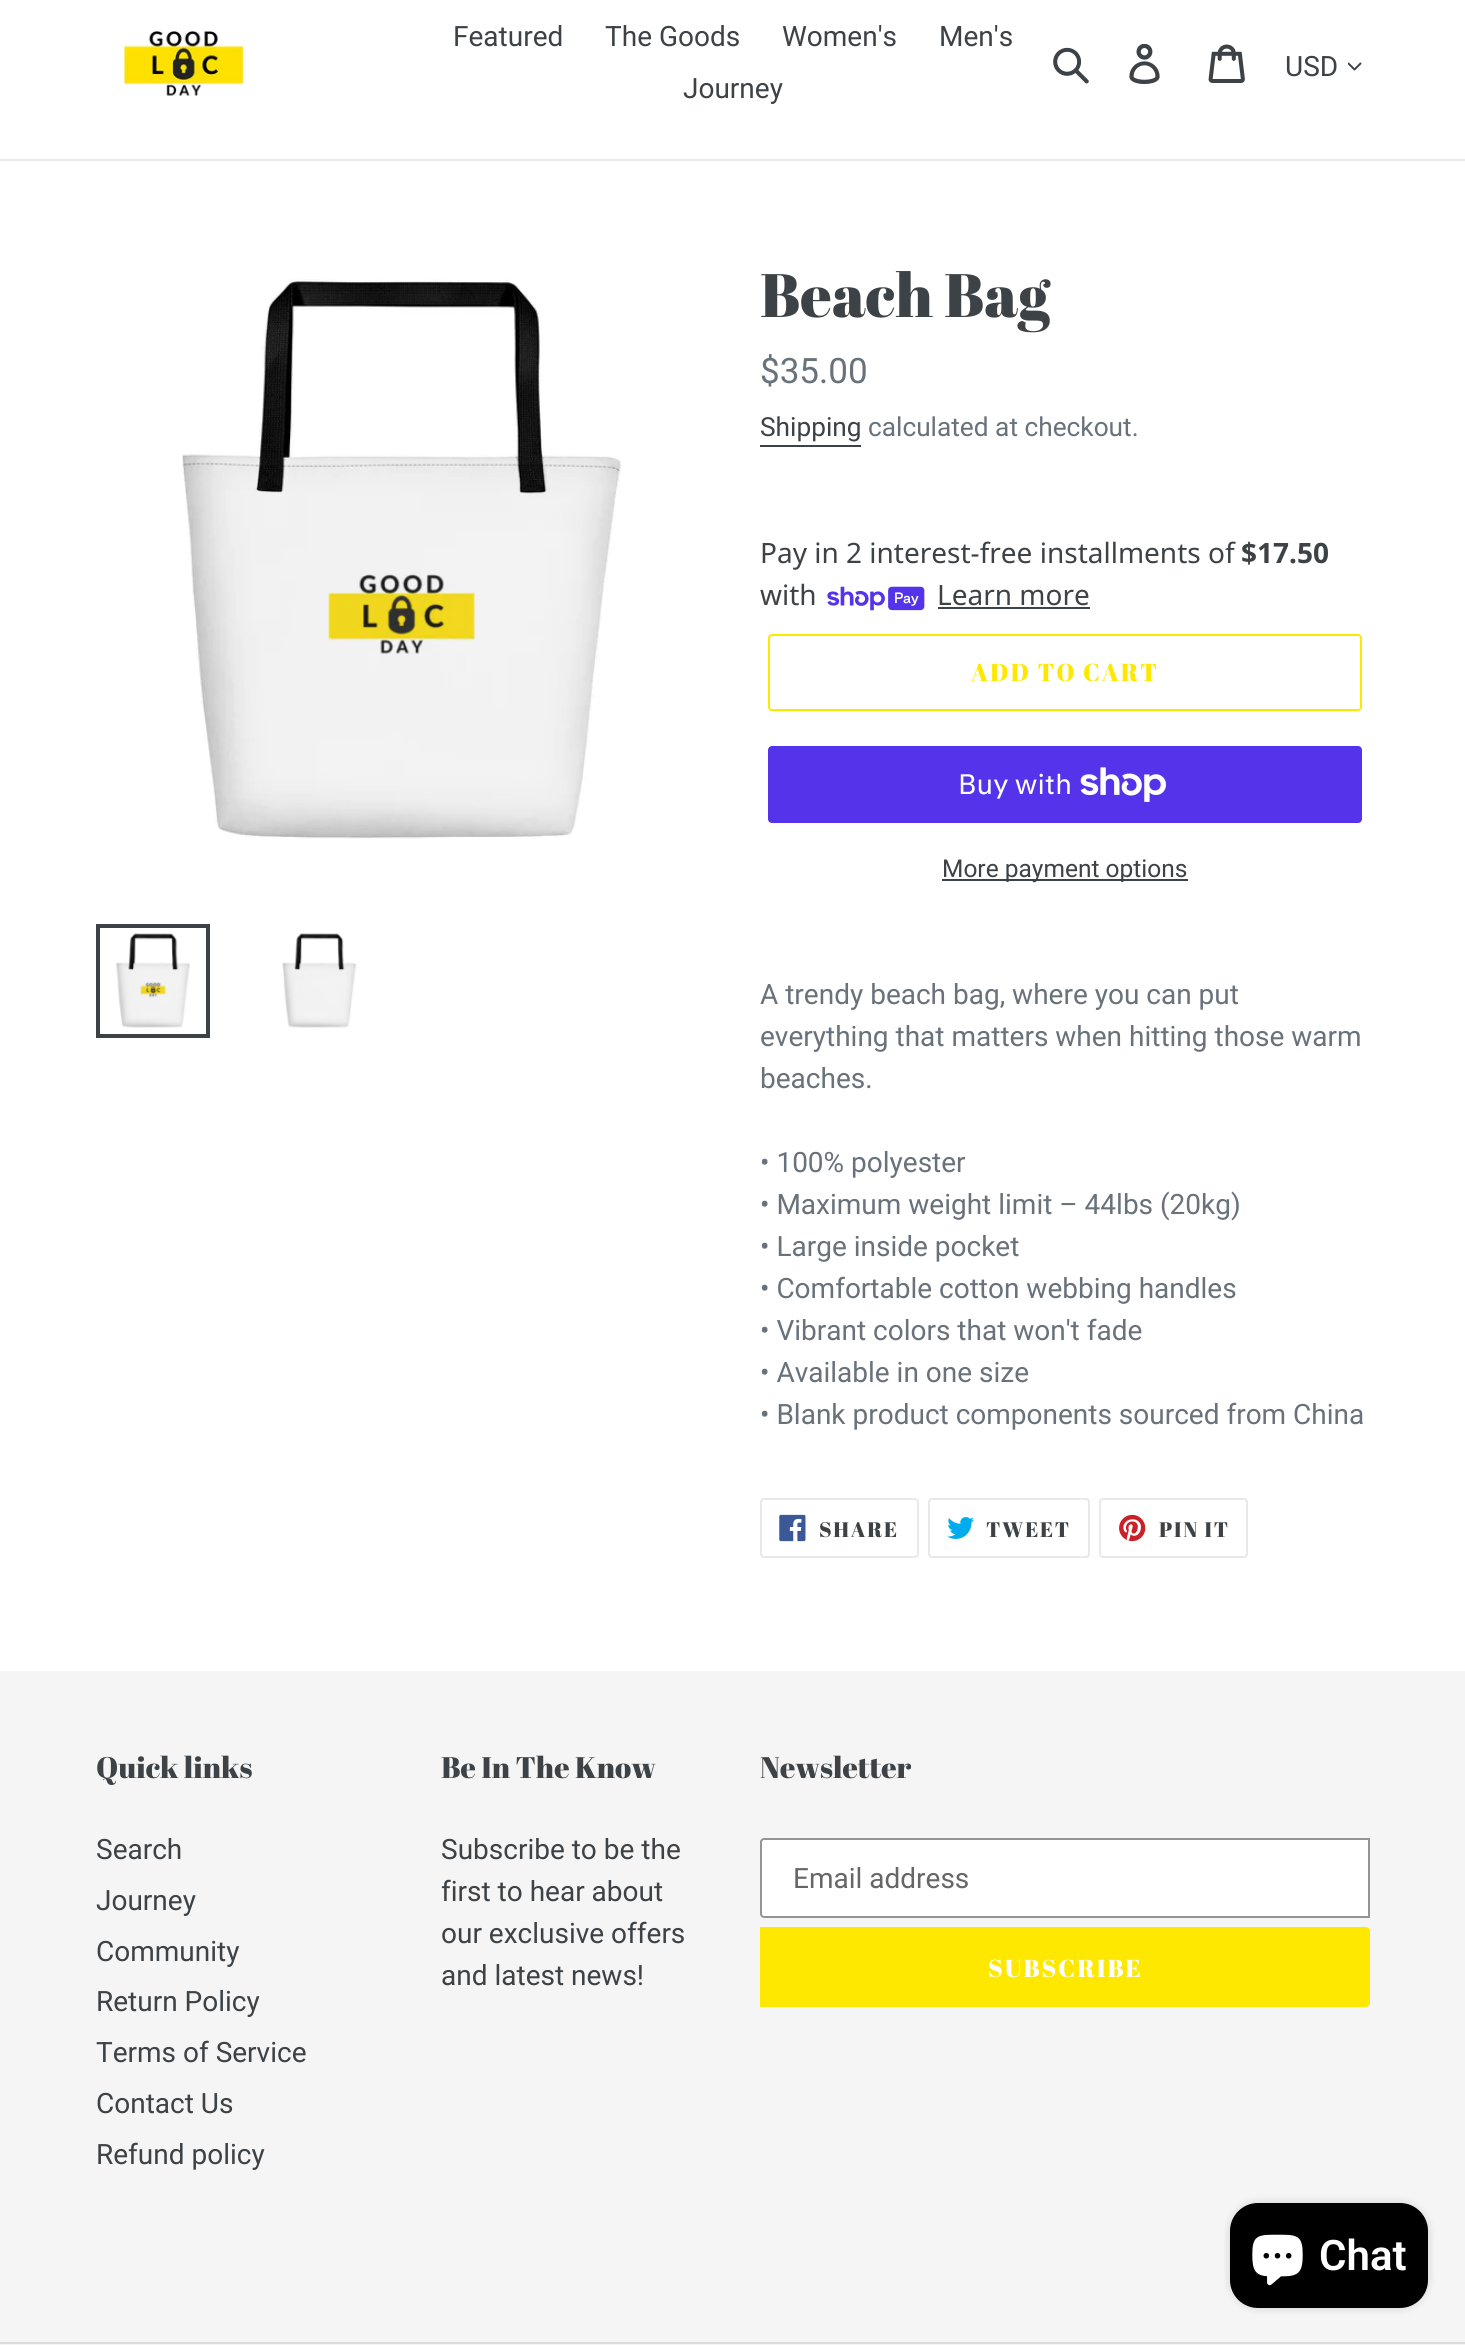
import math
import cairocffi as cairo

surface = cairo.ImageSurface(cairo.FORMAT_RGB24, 1465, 2345)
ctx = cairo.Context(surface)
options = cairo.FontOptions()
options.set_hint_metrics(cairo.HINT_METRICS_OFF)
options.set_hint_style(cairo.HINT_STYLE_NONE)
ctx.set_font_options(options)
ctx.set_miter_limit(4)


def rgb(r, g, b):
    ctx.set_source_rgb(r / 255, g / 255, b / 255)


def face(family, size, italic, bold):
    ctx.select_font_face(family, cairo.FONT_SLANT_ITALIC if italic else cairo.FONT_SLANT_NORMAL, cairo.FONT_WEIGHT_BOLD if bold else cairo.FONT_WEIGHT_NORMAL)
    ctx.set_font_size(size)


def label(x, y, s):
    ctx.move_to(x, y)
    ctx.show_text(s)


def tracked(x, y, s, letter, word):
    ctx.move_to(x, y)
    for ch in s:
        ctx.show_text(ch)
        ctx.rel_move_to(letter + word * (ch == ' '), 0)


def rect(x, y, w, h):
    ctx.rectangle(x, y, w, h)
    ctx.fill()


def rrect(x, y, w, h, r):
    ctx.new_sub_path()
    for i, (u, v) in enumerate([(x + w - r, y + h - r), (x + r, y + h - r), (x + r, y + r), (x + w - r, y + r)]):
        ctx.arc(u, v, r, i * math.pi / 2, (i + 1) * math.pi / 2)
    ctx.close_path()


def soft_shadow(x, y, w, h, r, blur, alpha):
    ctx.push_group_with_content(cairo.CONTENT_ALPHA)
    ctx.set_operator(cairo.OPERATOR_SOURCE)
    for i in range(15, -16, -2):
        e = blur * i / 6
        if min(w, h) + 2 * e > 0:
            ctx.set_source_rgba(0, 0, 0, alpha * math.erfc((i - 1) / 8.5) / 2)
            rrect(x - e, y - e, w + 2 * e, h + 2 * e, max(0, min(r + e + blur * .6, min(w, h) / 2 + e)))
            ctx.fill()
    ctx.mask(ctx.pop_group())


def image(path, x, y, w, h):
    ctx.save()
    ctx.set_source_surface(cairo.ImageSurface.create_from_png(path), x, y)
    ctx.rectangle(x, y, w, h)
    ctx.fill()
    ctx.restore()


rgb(255, 255, 255)
ctx.paint()
rgb(232, 233, 235)
rect(0, 159, 1465, 2)
image('image0.png', 123, 31, 121, 65)
face('Roboto', 28, 0, 0)
rgb(61, 66, 70)
label(453, 46, 'Featured')
label(605, 46, 'The Goods')
label(782, 46, 'Women\'s')
label(939, 46, 'Men\'s')
label(683, 98, 'Journey')
image('image1.png', 1053, 47, 36, 37)
image('image2.png', 1129, 44, 31, 40)
image('image3.png', 1208, 44, 37, 39)
label(1285, 76, 'USD')
image('image4.png', 1348, 62, 14, 9)
image('image5.png', 182, 279, 439, 560)
ctx.rectangle(98, 926, 110, 110)
ctx.set_line_width(4)
ctx.stroke()
image('image6.png', 116, 933, 75, 95)
image('image7.png', 282, 933, 75, 95)
face('Abril Fatface', 61.25, 0, 0)
label(760, 317, 'Beach Bag')
face('Roboto', 35, 0, 0)
rgb(105, 114, 123)
label(760, 383, '$35.00')
face('Roboto', 26.25, 0, 0)
rgb(61, 66, 70)
label(760, 436, 'Shipping')
rect(760, 445, 101, 2)
rgb(105, 114, 123)
label(868, 436, 'calculated at checkout.')
face('Noto Sans', 28, 0, 0)
rgb(61, 66, 70)
label(760, 563, 'Pay in 2 interest-free installments of')
face('Noto Sans', 28, 0, 1)
label(1241, 563, '$17.50')
face('Noto Sans', 28, 0, 0)
label(760, 605, 'with')
image('image8.png', 827, 586, 98, 25)
label(937, 605, 'Learn more')
rect(938, 607, 152, 2)
rrect(769, 635, 592, 75, 3)
rgb(254, 232, 0)
ctx.set_line_width(2)
ctx.stroke()
face('Abril Fatface', 24.5, 0, 0)
tracked(971, 681, 'ADD TO CART', 2, 0)
rgb(84, 51, 235)
rrect(768, 746, 594, 77, 4)
ctx.fill()
face('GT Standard', 28, 0, 0)
rgb(255, 255, 255)
label(958, 794, 'Buy with')
image('image9.png', 1080, 767, 86, 35)
rgb(61, 66, 70)
rect(942, 879, 246, 2)
face('Roboto', 24.5, 0, 0)
label(942, 877, 'More payment options')
face('Roboto', 28, 0, 0)
rgb(105, 114, 123)
label(760, 1004, 'A trendy beach bag, where you can put')
label(760, 1046, 'everything that matters when hitting those warm')
label(760, 1088, 'beaches.')
label(760, 1172, '• 100% polyester')
label(760, 1214, '• Maximum weight limit – 44lbs (20kg)')
label(760, 1256, '• Large inside pocket')
label(760, 1298, '• Comfortable cotton webbing handles')
label(760, 1340, '• Vibrant colors that won\'t fade')
label(760, 1382, '• Available in one size')
label(760, 1424, '• Blank product components sourced from China')
rrect(761, 1499, 157, 58, 3)
rgb(232, 233, 235)
ctx.stroke()
image('image10.png', 779, 1514, 27, 28)
face('Abril Fatface', 21, 0, 0)
rgb(61, 66, 70)
tracked(819, 1537, 'SHARE', 1.75, 0)
rrect(929, 1499, 160, 58, 3)
rgb(232, 233, 235)
ctx.stroke()
image('image11.png', 947, 1517, 27, 22)
rgb(61, 66, 70)
tracked(986, 1537, 'TWEET', 1.75, 0)
rrect(1100, 1499, 147, 58, 3)
rgb(232, 233, 235)
ctx.stroke()
image('image12.png', 1119, 1514, 27, 28)
rgb(61, 66, 70)
tracked(1159, 1537, 'PIN IT', 1.75, 0)
rgb(245, 245, 245)
rect(0, 1671, 1465, 674)
face('Abril Fatface', 29.75, 0, 0)
rgb(61, 66, 70)
label(96, 1778, 'Quick links')
face('Roboto', 28, 0, 0)
label(96, 1859, 'Search')
label(96, 1910, 'Journey')
label(96, 1961, 'Community')
label(96, 2011, 'Return Policy')
label(96, 2062, 'Terms of Service')
label(96, 2113, 'Contact Us')
label(96, 2164, 'Refund policy')
face('Abril Fatface', 29.75, 0, 0)
label(441, 1778, 'Be In The Know')
face('Roboto', 28, 0, 0)
label(441, 1859, 'Subscribe to be the')
label(441, 1901, 'first to hear about')
label(441, 1943, 'our exclusive offers')
label(441, 1985, 'and latest news!')
face('Abril Fatface', 29.75, 0, 0)
label(760, 1778, 'Newsletter')
rgb(255, 255, 255)
ctx.new_path()
ctx.move_to(764, 1839)
ctx.line_to(1369, 1839)
ctx.line_to(1369, 1917)
ctx.line_to(764, 1917)
ctx.curve_to(762.5, 1917, 761, 1915.5, 761, 1914)
ctx.line_to(761, 1842)
ctx.curve_to(761, 1840.5, 762.5, 1839, 764, 1839)
ctx.close_path()
ctx.fill_preserve()
rgb(148, 148, 148)
ctx.stroke()
face('Roboto', 28, 0, 0)
rgb(102, 102, 102)
label(793, 1888, 'Email address')
rgb(254, 232, 0)
ctx.new_path()
ctx.move_to(760, 1927)
ctx.line_to(1366, 1927)
ctx.curve_to(1368, 1927, 1370, 1929, 1370, 1931)
ctx.line_to(1370, 2003)
ctx.curve_to(1370, 2005, 1368, 2007, 1366, 2007)
ctx.line_to(760, 2007)
ctx.close_path()
ctx.fill()
face('Abril Fatface', 24.5, 0, 0)
rgb(255, 255, 255)
tracked(988, 1977, 'SUBSCRIBE', 2, 0)
rgb(220, 220, 220)
rect(0, 2342, 1465, 2)
rgb(0, 0, 0)
soft_shadow(1230, 2203, 198, 105, 28, 4.5, 0.15)
rgb(0, 0, 0)
rrect(1230, 2203, 198, 105, 28)
ctx.fill()
image('image13.png', 1252, 2234, 51, 52)
face('Roboto SemiBold', 42, 0, 0)
rgb(255, 255, 255)
label(1319, 2270, 'Chat')
surface.write_to_png('render.png')
